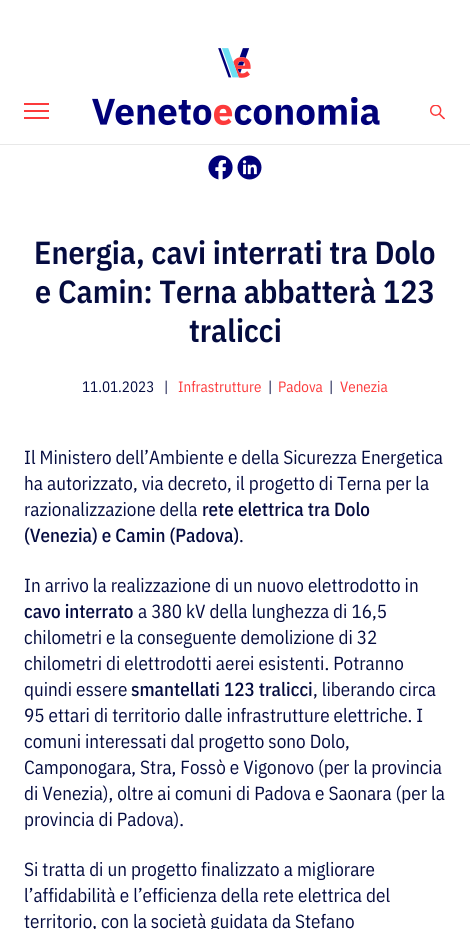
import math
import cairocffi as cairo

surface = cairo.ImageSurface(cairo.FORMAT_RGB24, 470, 929)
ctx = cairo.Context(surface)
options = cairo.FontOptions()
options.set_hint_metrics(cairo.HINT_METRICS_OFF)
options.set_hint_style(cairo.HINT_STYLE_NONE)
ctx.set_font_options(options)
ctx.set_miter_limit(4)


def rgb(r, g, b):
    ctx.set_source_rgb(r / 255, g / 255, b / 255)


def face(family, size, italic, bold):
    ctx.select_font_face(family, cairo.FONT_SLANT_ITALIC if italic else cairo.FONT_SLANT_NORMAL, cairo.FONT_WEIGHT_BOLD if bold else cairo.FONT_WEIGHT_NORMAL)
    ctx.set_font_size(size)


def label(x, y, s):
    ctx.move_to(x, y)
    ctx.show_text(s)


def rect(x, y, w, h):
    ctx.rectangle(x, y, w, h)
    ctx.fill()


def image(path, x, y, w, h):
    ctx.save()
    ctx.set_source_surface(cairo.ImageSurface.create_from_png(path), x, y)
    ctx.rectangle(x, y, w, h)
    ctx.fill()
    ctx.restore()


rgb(255, 255, 255)
ctx.paint()
image('image0.png', 218, 48, 33, 30)
rgb(232, 232, 232)
rect(0, 144, 470, 1)
image('image1.png', 92, 97, 288, 29)
image('image2.png', 430, 105, 15, 15)
rgb(252, 58, 59)
rect(24, 110, 25, 2)
rect(24, 103, 25, 2)
rect(24, 117, 25, 2)
image('image3.png', 208, 155, 25, 25)
image('image4.png', 237, 155, 25, 25)
face('IBM Plex Sans Condensed SemiBold', 32, 0, 0)
rgb(4, 11, 64)
label(34, 264, 'Energia, cavi interrati tra Dolo')
label(35, 303, 'e Camin: Terna abbatterà 123')
label(189, 342, 'tralicci')
face('IBM Plex Sans Condensed', 15, 0, 0)
label(82, 392, '11.01.2023')
label(164, 392, '|')
rgb(252, 58, 59)
label(178, 392, 'Infrastrutture')
rgb(4, 11, 64)
label(268, 392, '|')
rgb(252, 58, 59)
label(278, 392, 'Padova')
rgb(4, 11, 64)
label(329, 392, '|')
rgb(252, 58, 59)
label(340, 392, 'Venezia')
face('IBM Plex Sans Condensed', 19, 0, 0)
rgb(4, 11, 64)
label(24, 464, 'Il Ministero dell’Ambiente e della Sicurezza Energetica')
label(24, 490, 'ha autorizzato, via decreto, il progetto di Terna per la')
label(24, 516, 'razionalizzazione della')
face('IBM Plex Sans Condensed Medium', 19, 0, 0)
label(202, 516, 'rete elettrica tra Dolo')
label(24, 542, '(Venezia) e Camin (Padova)')
face('IBM Plex Sans Condensed', 19, 0, 0)
label(239, 542, '.')
label(24, 592, 'In arrivo la realizzazione di un nuovo elettrodotto in')
face('IBM Plex Sans Condensed Medium', 19, 0, 0)
label(24, 618, 'cavo interrato')
face('IBM Plex Sans Condensed', 19, 0, 0)
label(138, 618, 'a 380 kV della lunghezza di 16,5')
label(24, 644, 'chilometri e la conseguente demolizione di 32')
label(24, 670, 'chilometri di elettrodotti aerei esistenti. Potranno')
label(24, 696, 'quindi essere')
face('IBM Plex Sans Condensed Medium', 19, 0, 0)
label(131, 696, 'smantellati 123 tralicci')
face('IBM Plex Sans Condensed', 19, 0, 0)
label(313, 696, ', liberando circa')
label(24, 722, '95 ettari di territorio dalle infrastrutture elettriche. I')
label(24, 748, 'comuni interessati dal progetto sono Dolo,')
label(24, 774, 'Camponogara, Stra, Fossò e Vigonovo (per la provincia')
label(24, 800, 'di Venezia), oltre ai comuni di Padova e Saonara (per la')
label(24, 826, 'provincia di Padova).')
label(24, 876, 'Si tratta di un progetto finalizzato a migliorare')
label(24, 902, 'l’affidabilità e l’efficienza della rete elettrica del')
label(24, 928, 'territorio, con la società guidata da Stefano')
surface.write_to_png('render.png')
